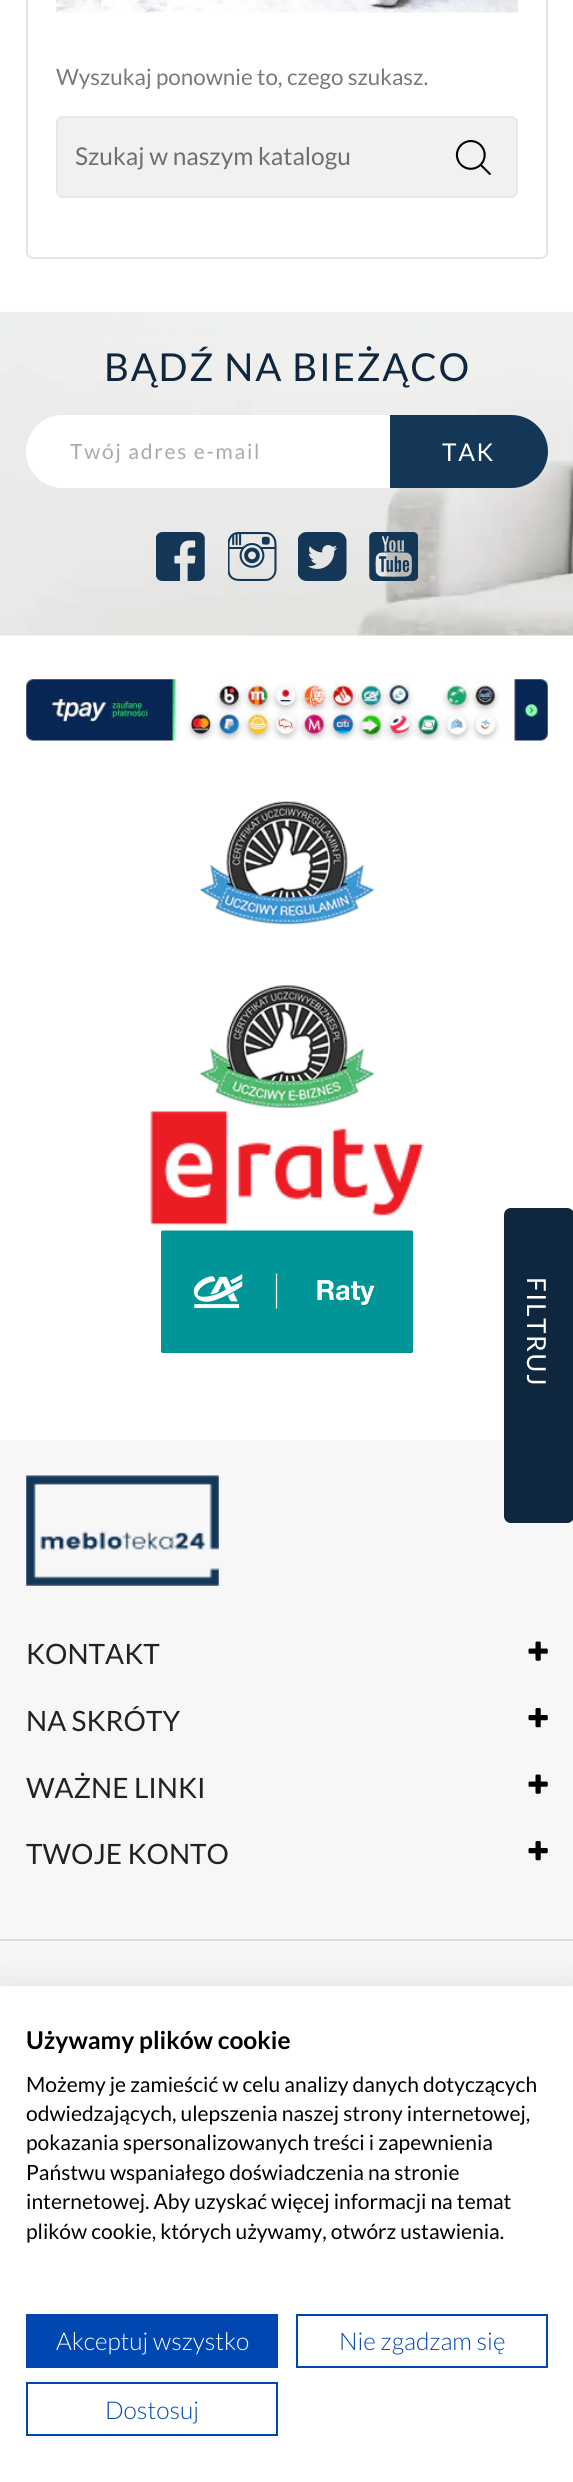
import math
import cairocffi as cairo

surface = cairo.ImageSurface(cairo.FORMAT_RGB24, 573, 2482)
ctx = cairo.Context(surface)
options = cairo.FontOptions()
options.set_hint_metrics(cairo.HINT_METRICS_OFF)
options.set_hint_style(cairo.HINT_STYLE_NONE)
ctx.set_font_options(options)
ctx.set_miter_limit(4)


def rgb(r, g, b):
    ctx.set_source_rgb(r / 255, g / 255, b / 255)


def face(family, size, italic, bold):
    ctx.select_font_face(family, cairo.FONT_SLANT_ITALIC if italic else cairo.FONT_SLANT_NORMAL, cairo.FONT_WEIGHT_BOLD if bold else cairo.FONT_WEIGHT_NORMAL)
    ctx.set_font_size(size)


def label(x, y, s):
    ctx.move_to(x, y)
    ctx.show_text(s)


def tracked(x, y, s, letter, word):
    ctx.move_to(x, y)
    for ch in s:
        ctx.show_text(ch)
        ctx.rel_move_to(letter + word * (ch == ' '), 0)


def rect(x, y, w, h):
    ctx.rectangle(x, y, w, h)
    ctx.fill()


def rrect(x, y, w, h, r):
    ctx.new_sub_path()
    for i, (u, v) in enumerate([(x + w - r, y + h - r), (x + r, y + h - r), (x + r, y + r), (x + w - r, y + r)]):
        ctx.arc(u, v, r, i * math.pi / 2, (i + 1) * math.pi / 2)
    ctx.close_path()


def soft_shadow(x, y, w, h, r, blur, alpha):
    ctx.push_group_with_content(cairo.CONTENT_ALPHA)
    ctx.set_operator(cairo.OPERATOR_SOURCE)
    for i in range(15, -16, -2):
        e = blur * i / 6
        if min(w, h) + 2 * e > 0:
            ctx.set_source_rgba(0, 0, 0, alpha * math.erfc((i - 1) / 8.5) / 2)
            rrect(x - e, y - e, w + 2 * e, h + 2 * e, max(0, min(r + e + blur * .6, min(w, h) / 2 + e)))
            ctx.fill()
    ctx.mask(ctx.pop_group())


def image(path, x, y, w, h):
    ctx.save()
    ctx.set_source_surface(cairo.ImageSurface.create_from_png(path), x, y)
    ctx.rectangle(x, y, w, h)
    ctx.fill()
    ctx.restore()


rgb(255, 255, 255)
ctx.paint()
rrect(27, -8, 520, 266, 6)
rgb(225, 230, 232)
ctx.stroke()
image('image0.png', 56, 0, 462, 13)
face('Lato', 22.4, 0, 0)
rgb(122, 122, 122)
label(56, 85, 'Wyszukaj ponownie to, czego szukasz.')
rgb(241, 241, 241)
rrect(57, 117, 460, 80, 6)
ctx.fill_preserve()
rgb(231, 231, 231)
ctx.stroke()
face('Lato', 24.5, 0, 0)
rgb(111, 111, 111)
label(75, 165, 'Szukaj w naszym katalogu')
image('image1.png', 455, 140, 36, 35)
image('image2.png', 0, 311, 573, 325)
face('Lato', 38.5, 0, 0)
rgb(14, 39, 62)
tracked(104, 381, 'BĄDŹ NA BIEŻĄCO', 1.75, 0)
rgb(255, 255, 255)
ctx.new_path()
ctx.move_to(62.5, 415)
ctx.line_to(390, 415)
ctx.line_to(390, 488)
ctx.line_to(62.5, 488)
ctx.curve_to(42.5, 488, 26, 471.5, 26, 451.5)
ctx.curve_to(26, 431.5, 42.5, 415, 62.5, 415)
ctx.close_path()
ctx.fill()
face('Lato', 21, 0, 0)
rgb(170, 170, 170)
tracked(70, 459, 'Twój adres e-mail', 1.75, 0)
rgb(20, 55, 88)
ctx.new_path()
ctx.move_to(390, 415)
ctx.line_to(511.5, 415)
ctx.curve_to(531.5, 415, 548, 431.5, 548, 451.5)
ctx.curve_to(548, 471.5, 531.5, 488, 511.5, 488)
ctx.line_to(390, 488)
ctx.close_path()
ctx.fill()
face('Lato', 24.5, 0, 0)
rgb(255, 255, 255)
tracked(442, 461, 'TAK', 1.75, 0)
image('image3.png', 156, 532, 49, 49)
image('image4.png', 228, 532, 49, 49)
image('image5.png', 298, 532, 49, 49)
image('image6.png', 369, 532, 49, 49)
image('image7.png', 26, 679, 522, 62)
image('image8.png', 199, 801, 176, 124)
image('image9.png', 199, 985, 176, 123)
image('image10.png', 150, 1111, 274, 115)
image('image11.png', 161, 1230, 252, 123)
rgb(247, 247, 247)
rect(0, 1440, 573, 546)
image('image12.png', 26, 1475, 193, 111)
face('Lato', 28, 0, 0)
rgb(34, 34, 34)
label(26, 1664, 'KONTAKT')
image('image13.png', 528, 1641, 20, 20)
label(26, 1731, 'NA SKRÓTY')
image('image14.png', 528, 1708, 20, 20)
label(26, 1798, 'WAŻNE LINKI')
image('image13.png', 528, 1774, 20, 20)
label(26, 1864, 'TWOJE KONTO')
image('image14.png', 528, 1841, 20, 20)
rgb(222, 222, 222)
rect(0, 1939, 573, 2)
rgb(14, 39, 62)
ctx.new_path()
ctx.move_to(511, 1208)
ctx.line_to(567, 1208)
ctx.curve_to(571, 1208, 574, 1211, 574, 1215)
ctx.line_to(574, 1278)
ctx.line_to(504, 1278)
ctx.line_to(504, 1215)
ctx.curve_to(504, 1211, 507, 1208, 511, 1208)
ctx.close_path()
ctx.fill()
ctx.new_path()
ctx.move_to(504, 1278)
ctx.line_to(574, 1278)
ctx.line_to(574, 1516)
ctx.curve_to(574, 1520, 571, 1523, 567, 1523)
ctx.line_to(511, 1523)
ctx.curve_to(507, 1523, 504, 1520, 504, 1516)
ctx.close_path()
ctx.fill()
face('Lato', 26.25, 0, 0)
rgb(255, 255, 255)
ctx.save()
ctx.translate(527, 1277)
ctx.rotate(90 * math.pi / 180)
tracked(0, 0, 'FILTRUJ', 1.5, 0)
ctx.restore()
rgb(0, 0, 0)
soft_shadow(0, 1986, 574, 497, 0, 21, 0.1)
rgb(255, 255, 255)
rect(0, 1986, 573, 496)
face('Lato', 24.5, 0, 1)
rgb(0, 0, 0)
label(26, 2049, 'Używamy plików cookie')
face('Lato', 21, 0, 0)
label(26, 2092, 'Możemy je zamieścić w celu analizy danych dotyczących')
label(26, 2121, 'odwiedzających, ulepszenia naszej strony internetowej,')
label(26, 2150, 'pokazania spersonalizowanych treści i zapewnienia')
label(26, 2180, 'Państwu wspaniałego doświadczenia na stronie')
label(26, 2209, 'internetowej. Aby uzyskać więcej informacji na temat')
label(26, 2239, 'plików cookie, których używamy, otwórz ustawienia.')
rgb(0, 71, 178)
rect(26, 2314, 252, 54)
face('Lato Light', 24.5, 0, 0)
rgb(255, 255, 255)
label(56, 2350, 'Akceptuj wszystko')
ctx.rectangle(297, 2315, 250, 52)
rgb(0, 71, 178)
ctx.stroke()
label(339, 2350, 'Nie zgadzam się')
ctx.rectangle(27, 2383, 250, 52)
ctx.stroke()
label(105, 2419, 'Dostosuj')
surface.write_to_png('render.png')
